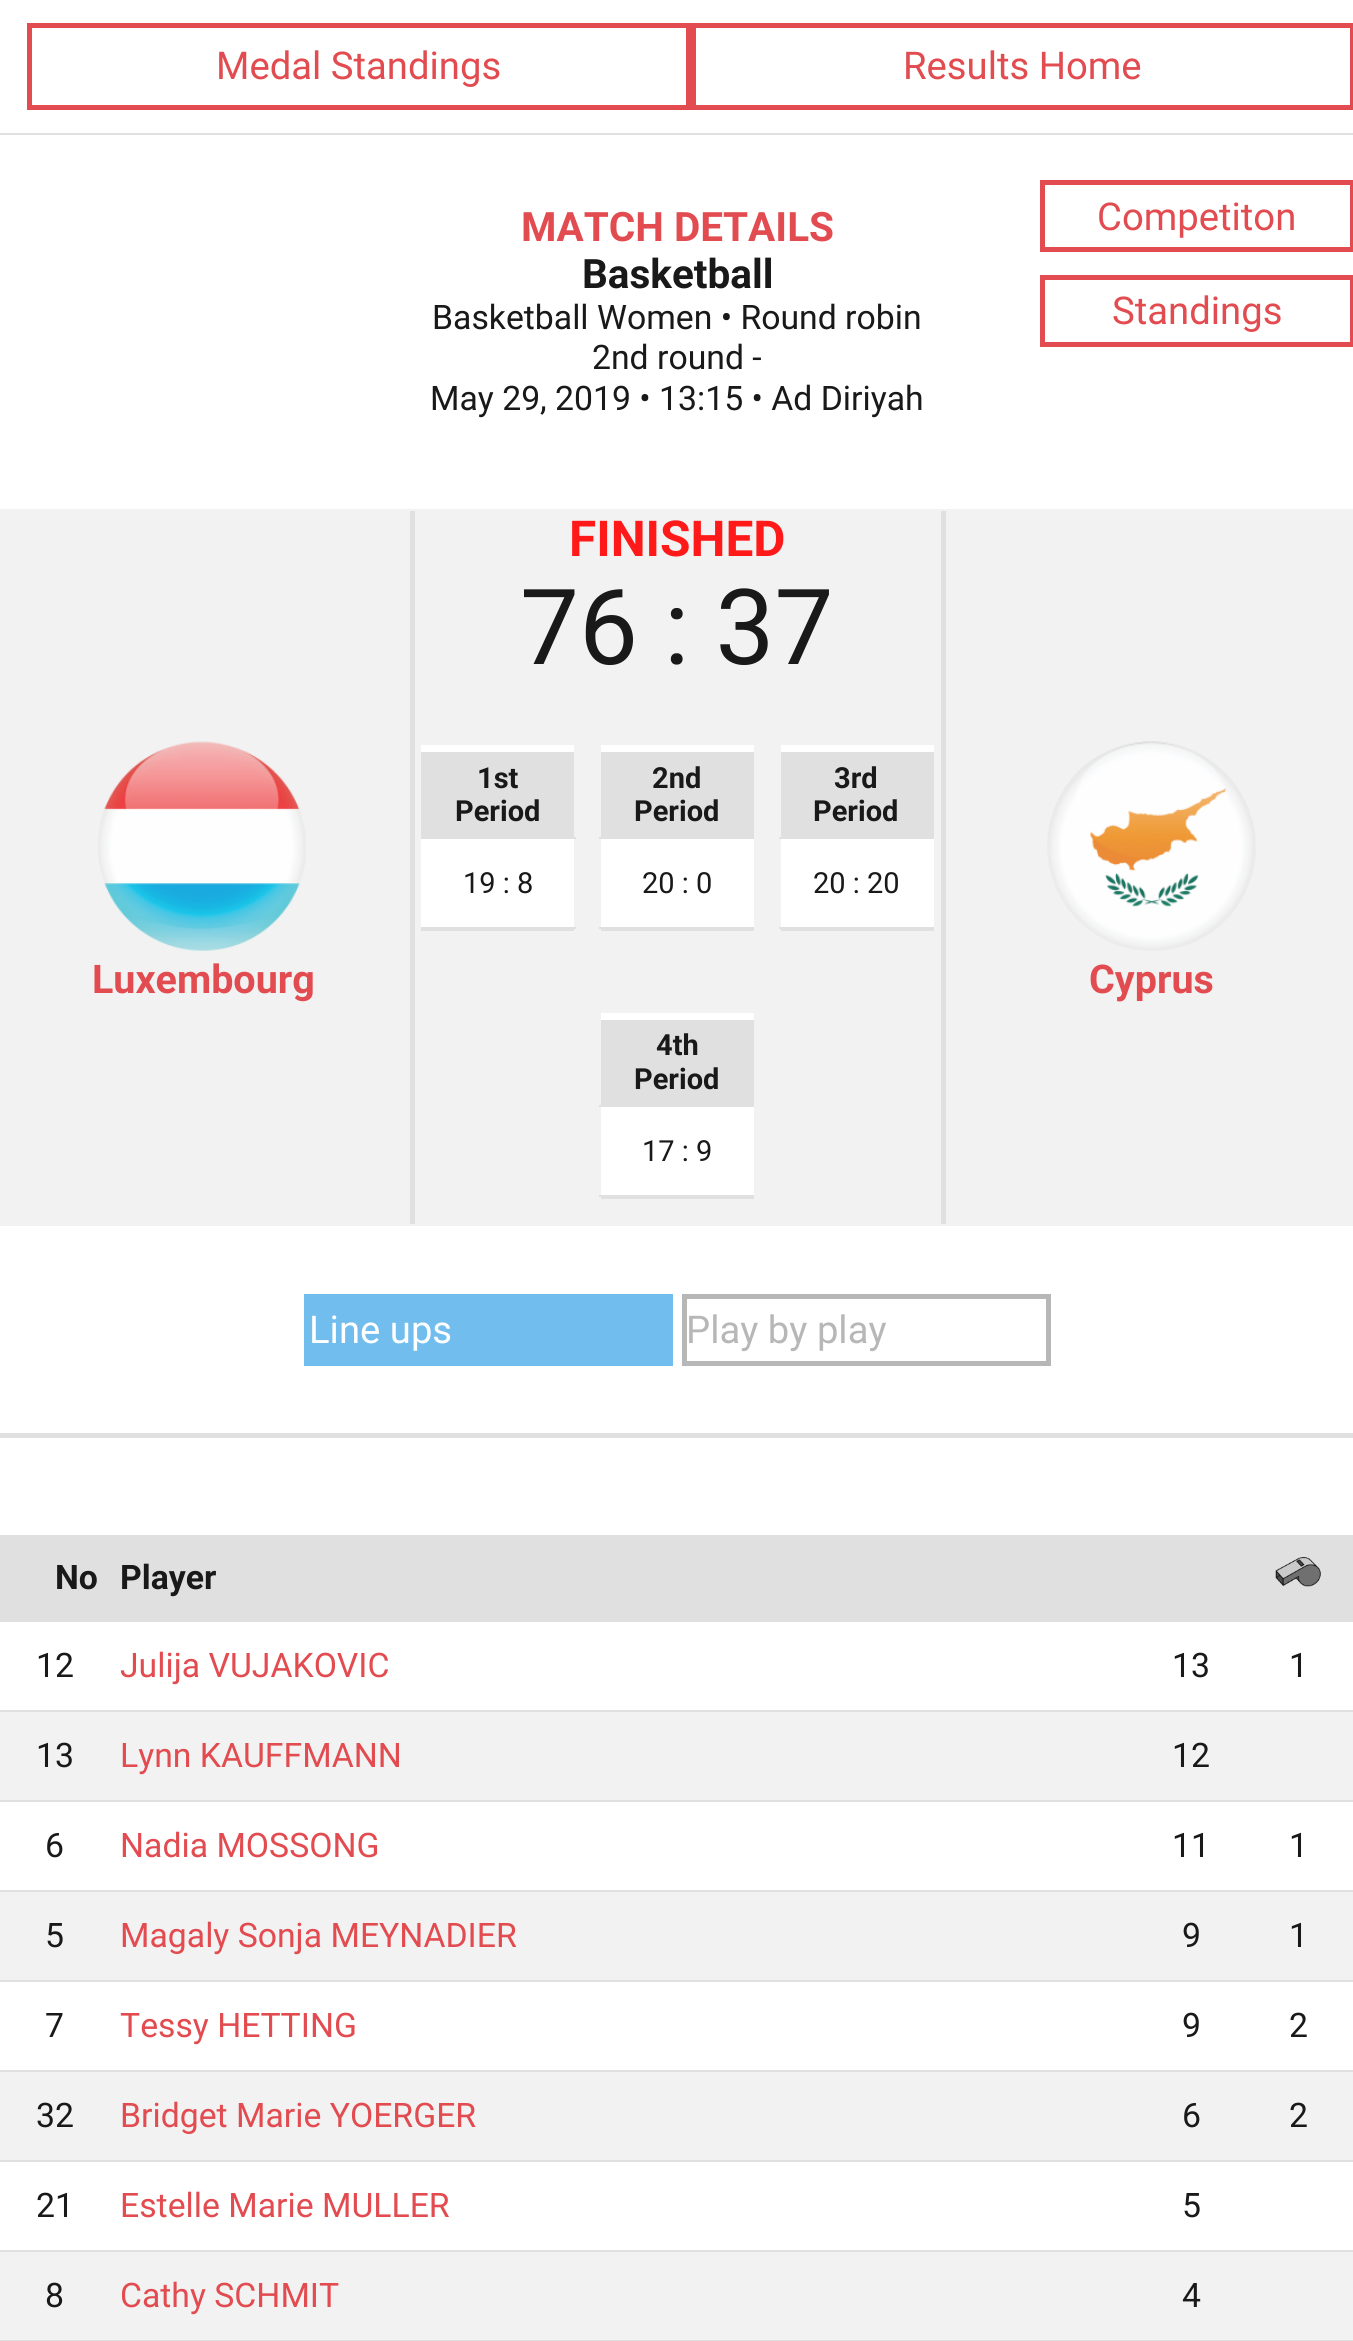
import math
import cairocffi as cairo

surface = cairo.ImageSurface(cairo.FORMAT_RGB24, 1353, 2341)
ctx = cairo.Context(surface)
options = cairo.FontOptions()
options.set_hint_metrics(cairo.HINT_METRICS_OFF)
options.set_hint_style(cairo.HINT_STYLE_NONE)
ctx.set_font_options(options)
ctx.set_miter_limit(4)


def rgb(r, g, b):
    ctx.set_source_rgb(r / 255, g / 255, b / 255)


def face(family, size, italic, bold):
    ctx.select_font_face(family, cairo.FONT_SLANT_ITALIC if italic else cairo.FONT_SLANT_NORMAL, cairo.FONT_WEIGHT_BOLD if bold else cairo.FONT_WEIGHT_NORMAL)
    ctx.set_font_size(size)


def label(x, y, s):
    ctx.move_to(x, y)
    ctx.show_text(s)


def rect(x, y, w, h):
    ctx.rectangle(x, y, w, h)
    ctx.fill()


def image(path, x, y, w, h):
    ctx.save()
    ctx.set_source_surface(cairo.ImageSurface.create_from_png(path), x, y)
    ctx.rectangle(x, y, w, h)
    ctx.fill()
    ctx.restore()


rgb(255, 255, 255)
ctx.paint()
rgb(224, 224, 224)
rect(0, 133, 1353, 2)
ctx.rectangle(29.5, 25.5, 659, 82)
rgb(226, 75, 79)
ctx.set_line_width(5)
ctx.stroke()
face('Roboto', 38.25, 0, 0)
label(216, 79, 'Medal Standings')
ctx.rectangle(693.5, 25.5, 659, 82)
ctx.stroke()
label(903, 79, 'Results Home')
face('Roboto', 40.5, 0, 1)
label(521, 241, 'MATCH DETAILS')
ctx.rectangle(1042.5, 182.5, 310, 67)
ctx.stroke()
face('Roboto', 38.25, 0, 0)
label(1097, 230, 'Competiton')
ctx.rectangle(1042.5, 277.5, 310, 67)
ctx.stroke()
label(1112, 324, 'Standings')
face('Roboto', 40.5, 0, 1)
rgb(25, 25, 25)
label(582, 288, 'Basketball')
face('Roboto', 33.75, 0, 0)
label(432, 329, 'Basketball Women • Round robin')
label(592, 369, '2nd round -')
label(430, 410, 'May 29, 2019 • 13:15 • Ad Diriyah')
rgb(242, 242, 242)
rect(0, 509, 1353, 717)
image('image0.png', 98, 741, 208, 210)
face('Roboto', 39.5, 0, 1)
rgb(226, 75, 79)
label(92, 993, 'Luxembourg')
rgb(224, 224, 224)
rect(941, 511, 5, 713)
rect(410, 511, 5, 713)
face('Roboto', 49.5, 0, 1)
rgb(255, 25, 25)
label(569, 556, 'FINISHED')
face('Roboto', 105, 0, 0)
rgb(25, 25, 25)
label(520, 664, '76 : 37')
rgb(224, 224, 224)
rect(421, 929, 153, 2)
rgb(255, 255, 255)
rect(421, 745, 153, 7)
rgb(224, 224, 224)
rect(421, 837, 155, 2)
rect(421, 752, 153, 85)
face('Roboto', 29, 0, 1)
rgb(25, 25, 25)
label(477, 788, '1st')
label(455, 821, 'Period')
rgb(255, 255, 255)
rect(421, 839, 153, 88)
rgb(224, 224, 224)
rect(421, 927, 155, 2)
face('Roboto', 29, 0, 0)
rgb(25, 25, 25)
label(463, 893, '19 : 8')
rgb(224, 224, 224)
rect(601, 929, 153, 2)
rgb(255, 255, 255)
rect(601, 745, 153, 7)
rgb(224, 224, 224)
rect(599, 837, 155, 2)
rect(601, 752, 153, 85)
face('Roboto', 29, 0, 1)
rgb(25, 25, 25)
label(652, 788, '2nd')
label(634, 821, 'Period')
rgb(255, 255, 255)
rect(601, 839, 153, 88)
rgb(224, 224, 224)
rect(599, 927, 155, 2)
face('Roboto', 29, 0, 0)
rgb(25, 25, 25)
label(642, 893, '20 : 0')
rgb(224, 224, 224)
rect(781, 929, 153, 2)
rgb(255, 255, 255)
rect(781, 745, 153, 7)
rgb(224, 224, 224)
rect(779, 837, 155, 2)
rect(781, 752, 153, 85)
face('Roboto', 29, 0, 1)
rgb(25, 25, 25)
label(834, 788, '3rd')
label(813, 821, 'Period')
rgb(255, 255, 255)
rect(781, 839, 153, 88)
rgb(224, 224, 224)
rect(779, 927, 155, 2)
face('Roboto', 29, 0, 0)
rgb(25, 25, 25)
label(813, 893, '20 : 20')
rgb(224, 224, 224)
rect(601, 1197, 153, 2)
rgb(255, 255, 255)
rect(601, 1013, 153, 7)
rgb(224, 224, 224)
rect(599, 1105, 155, 2)
rect(601, 1020, 153, 85)
face('Roboto', 29, 0, 1)
rgb(25, 25, 25)
label(656, 1055, '4th')
label(634, 1089, 'Period')
rgb(255, 255, 255)
rect(601, 1107, 153, 88)
rgb(224, 224, 224)
rect(599, 1195, 155, 2)
face('Roboto', 29, 0, 0)
rgb(25, 25, 25)
label(642, 1161, '17 : 9')
image('image1.png', 1047, 741, 209, 210)
face('Roboto', 39.5, 0, 1)
rgb(226, 75, 79)
label(1089, 993, 'Cyprus')
rgb(224, 224, 224)
rect(0, 1433, 1353, 5)
rgb(113, 190, 238)
rect(304, 1294, 369, 72)
face('Roboto', 38.25, 0, 0)
rgb(255, 255, 255)
label(309, 1343, 'Line ups')
ctx.rectangle(684.5, 1296.5, 364, 67)
rgb(183, 183, 183)
ctx.stroke()
label(686, 1343, 'Play by play')
rgb(224, 224, 224)
rect(0, 1535, 1353, 87)
face('Roboto', 33.75, 0, 1)
rgb(25, 25, 25)
label(55, 1589, 'No')
label(120, 1589, 'Player')
image('image2.png', 1275, 1557, 46, 30)
rgb(224, 224, 224)
rect(0, 1710, 1353, 2)
face('Roboto', 33.75, 0, 0)
rgb(25, 25, 25)
label(36, 1677, '12')
rgb(226, 75, 79)
label(120, 1677, 'Julija VUJAKOVIC')
rgb(25, 25, 25)
label(1172, 1677, '13')
label(1289, 1677, '1')
rgb(242, 242, 242)
rect(0, 1712, 1353, 88)
rgb(224, 224, 224)
rect(0, 1800, 1353, 2)
rgb(25, 25, 25)
label(36, 1767, '13')
rgb(226, 75, 79)
label(120, 1767, 'Lynn KAUFFMANN')
rgb(25, 25, 25)
label(1172, 1767, '12')
rgb(224, 224, 224)
rect(0, 1890, 1353, 2)
rgb(25, 25, 25)
label(45, 1857, '6')
rgb(226, 75, 79)
label(120, 1857, 'Nadia MOSSONG')
rgb(25, 25, 25)
label(1172, 1857, '11')
label(1289, 1857, '1')
rgb(242, 242, 242)
rect(0, 1892, 1353, 88)
rgb(224, 224, 224)
rect(0, 1980, 1353, 2)
rgb(25, 25, 25)
label(45, 1947, '5')
rgb(226, 75, 79)
label(120, 1947, 'Magaly Sonja MEYNADIER')
rgb(25, 25, 25)
label(1182, 1947, '9')
label(1289, 1947, '1')
rgb(224, 224, 224)
rect(0, 2070, 1353, 2)
rgb(25, 25, 25)
label(45, 2037, '7')
rgb(226, 75, 79)
label(120, 2037, 'Tessy HETTING')
rgb(25, 25, 25)
label(1182, 2037, '9')
label(1289, 2037, '2')
rgb(242, 242, 242)
rect(0, 2072, 1353, 88)
rgb(224, 224, 224)
rect(0, 2160, 1353, 2)
rgb(25, 25, 25)
label(36, 2127, '32')
rgb(226, 75, 79)
label(120, 2127, 'Bridget Marie YOERGER')
rgb(25, 25, 25)
label(1182, 2127, '6')
label(1289, 2127, '2')
rgb(224, 224, 224)
rect(0, 2250, 1353, 2)
rgb(25, 25, 25)
label(36, 2217, '21')
rgb(226, 75, 79)
label(120, 2217, 'Estelle Marie MULLER')
rgb(25, 25, 25)
label(1182, 2217, '5')
rgb(242, 242, 242)
rect(0, 2252, 1353, 88)
rgb(224, 224, 224)
rect(0, 2340, 1353, 1)
rgb(25, 25, 25)
label(45, 2307, '8')
rgb(226, 75, 79)
label(120, 2307, 'Cathy SCHMIT')
rgb(25, 25, 25)
label(1182, 2307, '4')
surface.write_to_png('render.png')
